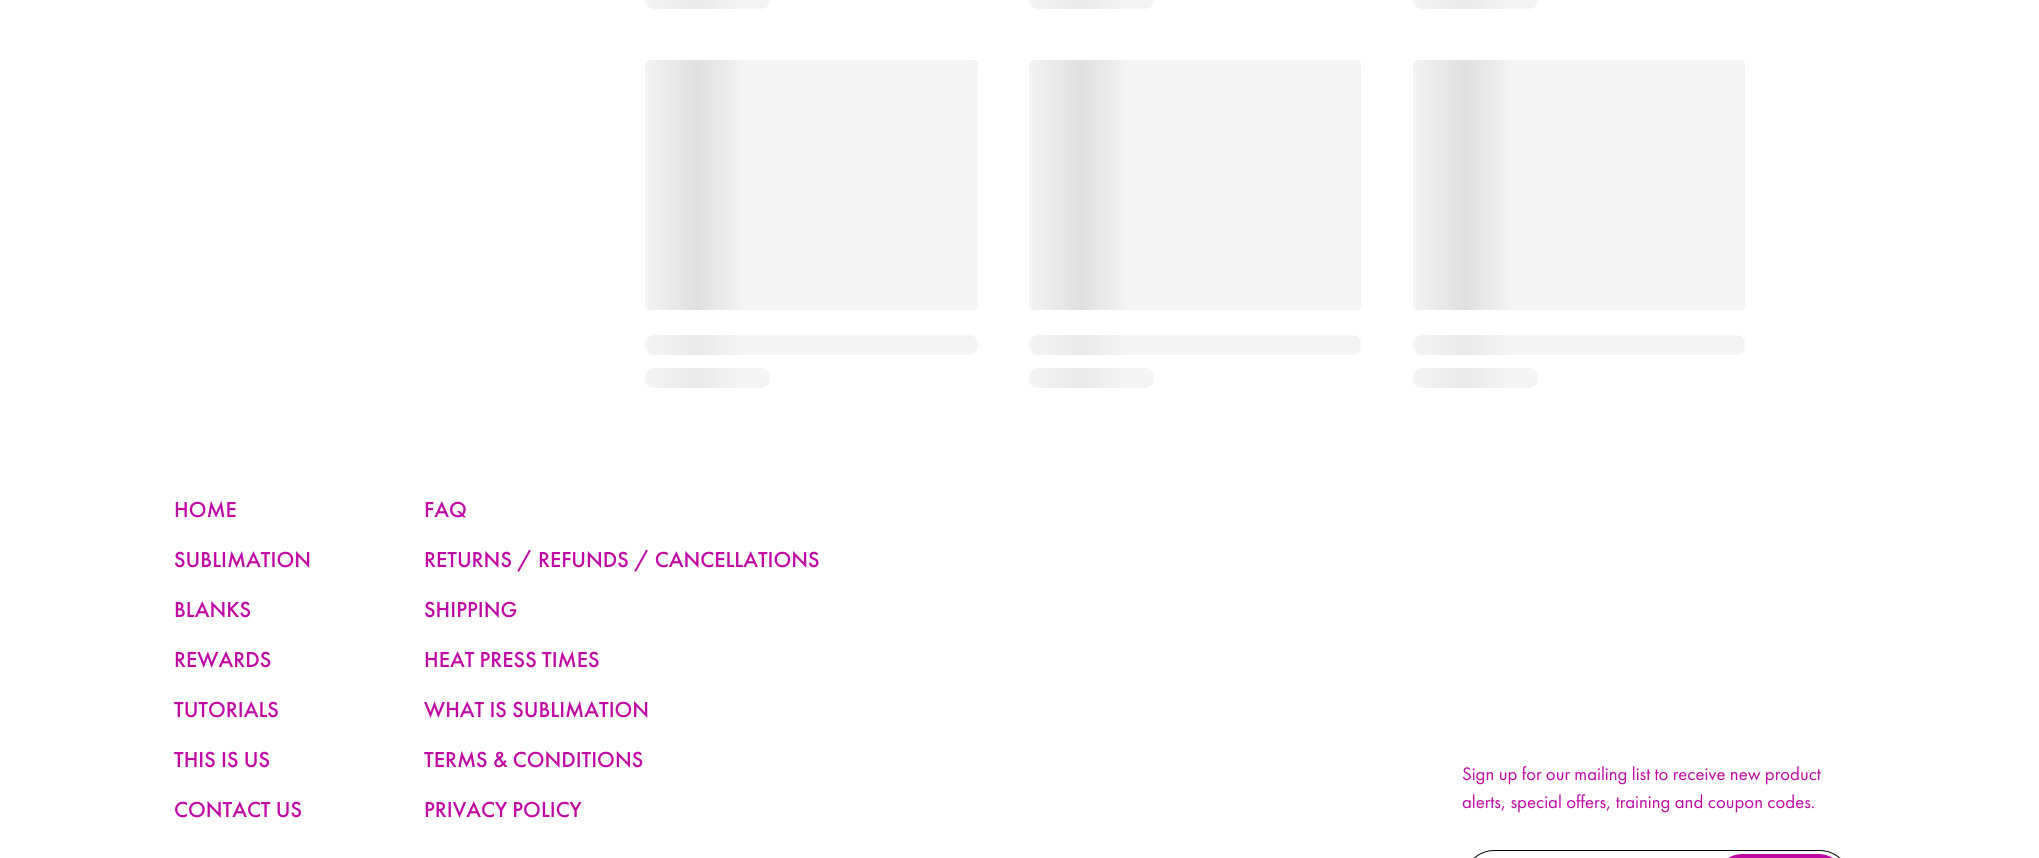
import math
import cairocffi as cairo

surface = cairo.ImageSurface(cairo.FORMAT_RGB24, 2039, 858)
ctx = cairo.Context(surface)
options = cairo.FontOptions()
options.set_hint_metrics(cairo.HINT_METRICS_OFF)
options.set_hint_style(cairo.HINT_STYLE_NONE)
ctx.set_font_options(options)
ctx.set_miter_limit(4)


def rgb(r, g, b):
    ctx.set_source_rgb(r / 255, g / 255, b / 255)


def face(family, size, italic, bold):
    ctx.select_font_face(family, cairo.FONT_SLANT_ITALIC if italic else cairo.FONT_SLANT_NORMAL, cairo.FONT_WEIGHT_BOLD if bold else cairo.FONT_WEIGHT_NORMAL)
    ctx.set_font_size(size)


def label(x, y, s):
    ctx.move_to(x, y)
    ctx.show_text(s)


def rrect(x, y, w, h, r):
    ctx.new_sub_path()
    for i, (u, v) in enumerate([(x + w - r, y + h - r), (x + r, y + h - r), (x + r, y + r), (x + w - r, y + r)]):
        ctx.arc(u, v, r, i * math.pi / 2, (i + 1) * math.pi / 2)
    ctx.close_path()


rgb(255, 255, 255)
ctx.paint()
gradient = cairo.LinearGradient(645, -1.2, 1395, -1.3)
gradient.add_color_stop_rgba(0, 0.957, 0.957, 0.957, 1)
gradient.add_color_stop_rgba(0.07, 0.918, 0.918, 0.918, 1)
gradient.add_color_stop_rgba(0.13, 0.957, 0.957, 0.957, 1)
ctx.set_source(gradient)
rrect(645, -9, 125, 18, 9)
ctx.fill()
gradient = cairo.LinearGradient(1029, -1.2, 1779, -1.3)
gradient.add_color_stop_rgba(0, 0.957, 0.957, 0.957, 1)
gradient.add_color_stop_rgba(0.07, 0.918, 0.918, 0.918, 1)
gradient.add_color_stop_rgba(0.13, 0.957, 0.957, 0.957, 1)
ctx.set_source(gradient)
rrect(1029, -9, 125, 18, 9)
ctx.fill()
gradient = cairo.LinearGradient(1413, -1.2, 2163, -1.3)
gradient.add_color_stop_rgba(0, 0.957, 0.957, 0.957, 1)
gradient.add_color_stop_rgba(0.07, 0.918, 0.918, 0.918, 1)
gradient.add_color_stop_rgba(0.13, 0.957, 0.957, 0.957, 1)
ctx.set_source(gradient)
rrect(1413, -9, 125, 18, 9)
ctx.fill()
rgb(204, 204, 204)
rrect(645, 60, 333, 250, 6)
ctx.fill()
gradient = cairo.LinearGradient(645, 185, 1395, 185)
gradient.add_color_stop_rgba(0, 0.957, 0.957, 0.957, 1)
gradient.add_color_stop_rgba(0.07, 0.898, 0.898, 0.898, 0.8)
gradient.add_color_stop_rgba(0.13, 0.957, 0.957, 0.957, 1)
ctx.set_source(gradient)
rrect(645, 60, 333, 250, 6)
ctx.fill()
gradient = cairo.LinearGradient(645, 345, 1395, 345)
gradient.add_color_stop_rgba(0, 0.957, 0.957, 0.957, 1)
gradient.add_color_stop_rgba(0.07, 0.918, 0.918, 0.918, 1)
gradient.add_color_stop_rgba(0.13, 0.957, 0.957, 0.957, 1)
ctx.set_source(gradient)
rrect(645, 335, 333, 20, 9)
ctx.fill()
gradient = cairo.LinearGradient(645, 378, 1395, 378)
gradient.add_color_stop_rgba(0, 0.957, 0.957, 0.957, 1)
gradient.add_color_stop_rgba(0.07, 0.918, 0.918, 0.918, 1)
gradient.add_color_stop_rgba(0.13, 0.957, 0.957, 0.957, 1)
ctx.set_source(gradient)
rrect(645, 368, 125, 20, 9)
ctx.fill()
rgb(204, 204, 204)
rrect(1029, 60, 332, 250, 6)
ctx.fill()
gradient = cairo.LinearGradient(1029, 185, 1779, 185)
gradient.add_color_stop_rgba(0, 0.957, 0.957, 0.957, 1)
gradient.add_color_stop_rgba(0.07, 0.898, 0.898, 0.898, 0.8)
gradient.add_color_stop_rgba(0.13, 0.957, 0.957, 0.957, 1)
ctx.set_source(gradient)
rrect(1029, 60, 332, 250, 6)
ctx.fill()
gradient = cairo.LinearGradient(1029, 345, 1779, 345)
gradient.add_color_stop_rgba(0, 0.957, 0.957, 0.957, 1)
gradient.add_color_stop_rgba(0.07, 0.918, 0.918, 0.918, 1)
gradient.add_color_stop_rgba(0.13, 0.957, 0.957, 0.957, 1)
ctx.set_source(gradient)
rrect(1029, 335, 332, 20, 9)
ctx.fill()
gradient = cairo.LinearGradient(1029, 378, 1779, 378)
gradient.add_color_stop_rgba(0, 0.957, 0.957, 0.957, 1)
gradient.add_color_stop_rgba(0.07, 0.918, 0.918, 0.918, 1)
gradient.add_color_stop_rgba(0.13, 0.957, 0.957, 0.957, 1)
ctx.set_source(gradient)
rrect(1029, 368, 125, 20, 9)
ctx.fill()
rgb(204, 204, 204)
rrect(1413, 60, 332, 250, 6)
ctx.fill()
gradient = cairo.LinearGradient(1413, 185, 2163, 185)
gradient.add_color_stop_rgba(0, 0.957, 0.957, 0.957, 1)
gradient.add_color_stop_rgba(0.07, 0.898, 0.898, 0.898, 0.8)
gradient.add_color_stop_rgba(0.13, 0.957, 0.957, 0.957, 1)
ctx.set_source(gradient)
rrect(1413, 60, 332, 250, 6)
ctx.fill()
gradient = cairo.LinearGradient(1413, 345, 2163, 345)
gradient.add_color_stop_rgba(0, 0.957, 0.957, 0.957, 1)
gradient.add_color_stop_rgba(0.07, 0.918, 0.918, 0.918, 1)
gradient.add_color_stop_rgba(0.13, 0.957, 0.957, 0.957, 1)
ctx.set_source(gradient)
rrect(1413, 335, 332, 20, 9)
ctx.fill()
gradient = cairo.LinearGradient(1413, 378, 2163, 378)
gradient.add_color_stop_rgba(0, 0.957, 0.957, 0.957, 1)
gradient.add_color_stop_rgba(0.07, 0.918, 0.918, 0.918, 1)
gradient.add_color_stop_rgba(0.13, 0.957, 0.957, 0.957, 1)
ctx.set_source(gradient)
rrect(1413, 368, 125, 20, 9)
ctx.fill()
face('Futura PT Medium', 22.5, 0, 0)
rgb(191, 7, 163)
label(174, 517, 'HOME')
label(174, 567, 'SUBLIMATION')
label(174, 617, 'BLANKS')
label(174, 667, 'REWARDS')
label(174, 717, 'TUTORIALS')
label(174, 767, 'THIS IS US')
label(174, 817, 'CONTACT US')
label(424, 517, 'FAQ')
label(424, 567, 'RETURNS / REFUNDS / CANCELLATIONS')
label(424, 617, 'SHIPPING')
label(424, 667, 'HEAT PRESS TIMES')
label(424, 717, 'WHAT IS SUBLIMATION')
label(424, 767, 'TERMS & CONDITIONS')
label(424, 817, 'PRIVACY POLICY')
face('Futura PT', 18.75, 0, 0)
label(1462, 780, 'Sign up for our mailing list to receive new product')
label(1462, 808, 'alerts, special offers, training and coupon codes.')
rrect(1463.5, 850.5, 387, 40, 31)
rgb(0, 0, 0)
ctx.set_line_width(1)
ctx.stroke()
rgb(191, 7, 163)
rrect(1715, 854, 131, 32, 27.5)
ctx.fill()
surface.write_to_png('render.png')
